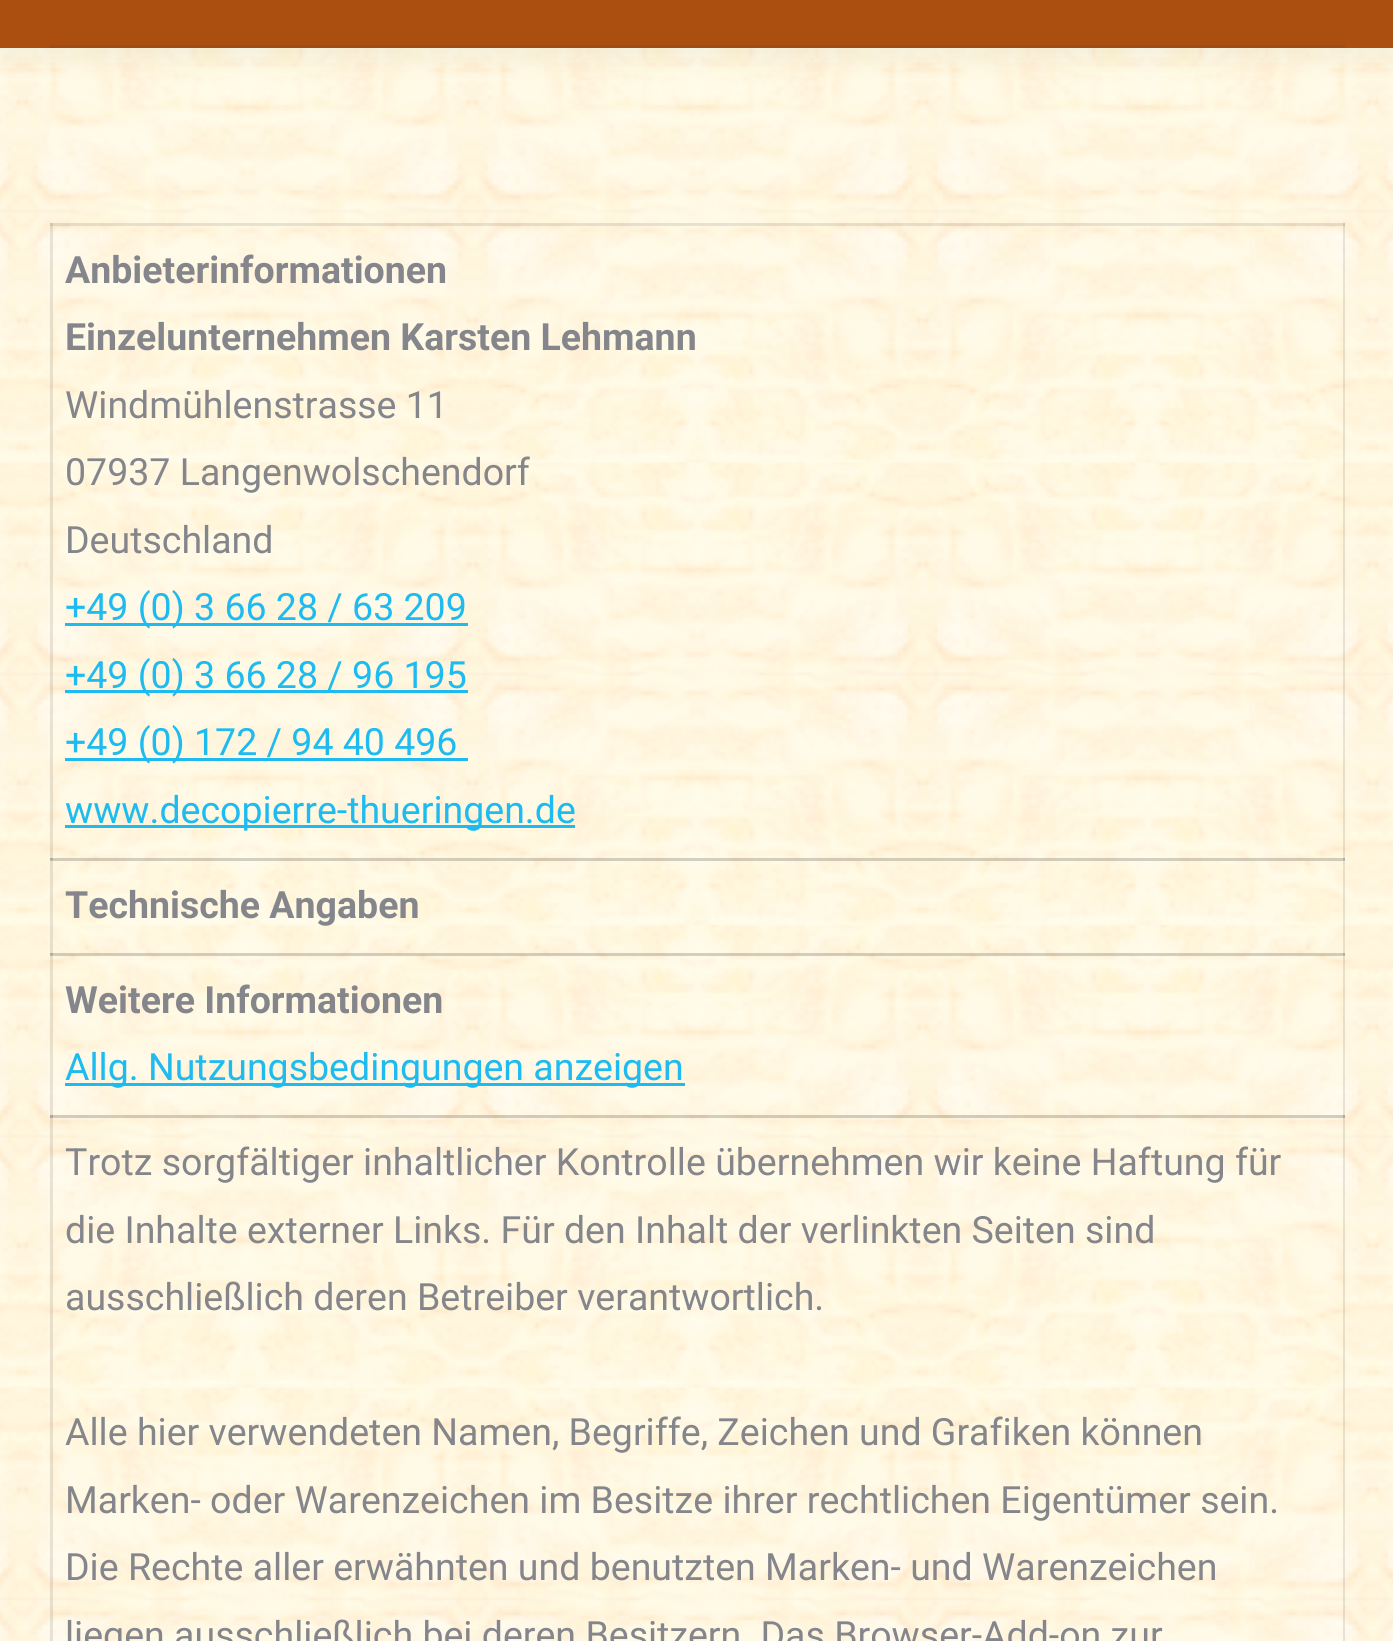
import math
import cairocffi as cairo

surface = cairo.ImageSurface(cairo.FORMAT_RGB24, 1393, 1641)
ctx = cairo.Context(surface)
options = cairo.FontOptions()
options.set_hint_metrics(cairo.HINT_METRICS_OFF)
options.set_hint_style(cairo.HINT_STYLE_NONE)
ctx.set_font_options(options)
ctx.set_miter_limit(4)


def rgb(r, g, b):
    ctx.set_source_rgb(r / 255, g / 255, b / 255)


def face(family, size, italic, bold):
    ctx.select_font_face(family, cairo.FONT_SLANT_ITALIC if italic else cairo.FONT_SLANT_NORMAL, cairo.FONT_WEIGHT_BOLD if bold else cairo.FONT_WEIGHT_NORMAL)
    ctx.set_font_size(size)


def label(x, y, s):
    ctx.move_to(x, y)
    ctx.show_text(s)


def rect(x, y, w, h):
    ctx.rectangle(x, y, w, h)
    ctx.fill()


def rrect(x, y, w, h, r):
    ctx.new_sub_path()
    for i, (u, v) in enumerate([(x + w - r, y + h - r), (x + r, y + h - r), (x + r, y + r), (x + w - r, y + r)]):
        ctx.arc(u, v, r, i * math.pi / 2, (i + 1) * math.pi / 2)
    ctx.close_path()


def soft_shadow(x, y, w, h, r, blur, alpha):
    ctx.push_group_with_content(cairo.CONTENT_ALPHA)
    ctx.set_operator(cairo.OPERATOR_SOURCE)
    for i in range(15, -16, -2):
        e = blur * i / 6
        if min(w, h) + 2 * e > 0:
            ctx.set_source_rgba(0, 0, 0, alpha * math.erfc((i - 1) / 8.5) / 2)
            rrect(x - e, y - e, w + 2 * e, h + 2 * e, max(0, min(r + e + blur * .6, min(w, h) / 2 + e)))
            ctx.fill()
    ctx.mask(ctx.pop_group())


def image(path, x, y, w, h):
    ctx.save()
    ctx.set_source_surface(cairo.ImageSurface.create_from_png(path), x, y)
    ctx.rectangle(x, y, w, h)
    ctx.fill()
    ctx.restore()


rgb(255, 255, 255)
ctx.paint()
image('image0.png', 0, 195, 1393, 1414)
image('image1.png', 0, 48, 1393, 1593)
rgb(0, 0, 0)
soft_shadow(-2, -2, 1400, 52, 0, 19, 0.07)
rgb(171, 79, 17)
rect(0, 0, 1393, 48)
rgb(157, 76, 21)
rect(50, 45, 1295, 3)
ctx.set_source_rgba(0.2, 0.2, 0.2, 0.12)
rect(50, 223, 1295, 3)
rect(50, 858, 1295, 3)
rect(50, 953, 1295, 3)
rect(50, 1115, 1295, 3)
rect(1343, 1115, 2, 526)
rect(1343, 953, 2, 165)
rect(1343, 858, 2, 97)
rect(1343, 223, 2, 637)
rect(50, 1115, 3, 526)
rect(50, 1115, 1295, 3)
rect(50, 953, 3, 165)
rect(50, 953, 1295, 3)
rect(50, 858, 3, 97)
rect(50, 858, 1295, 3)
rect(50, 223, 3, 637)
face('Roboto', 37.5, 0, 1)
rgb(133, 134, 140)
label(65, 283, 'Anbieterinformationen')
label(65, 350, 'Einzelunternehmen Karsten Lehmann')
face('Roboto', 37.5, 0, 0)
label(65, 418, 'Windmühlenstrasse 11')
label(65, 485, '07937 Langenwolschendorf')
label(65, 553, 'Deutschland')
rgb(30, 187, 240)
rect(65, 623, 403, 3)
label(65, 620, '+49 (0) 3 66 28 / 63 209')
rect(65, 690, 403, 3)
label(65, 688, '+49 (0) 3 66 28 / 96 195')
rect(65, 758, 403, 3)
label(65, 755, '+49 (0) 172 / 94 40 496')
rect(65, 825, 510, 3)
label(65, 823, 'www.decopierre-thueringen.de')
face('Roboto', 37.5, 0, 1)
rgb(133, 134, 140)
label(65, 918, 'Technische Angaben')
label(65, 1013, 'Weitere Informationen')
rgb(30, 187, 240)
rect(65, 1083, 620, 3)
face('Roboto', 37.5, 0, 0)
label(65, 1080, 'Allg. Nutzungsbedingungen anzeigen')
rgb(133, 134, 140)
label(65, 1175, 'Trotz sorgfältiger inhaltlicher Kontrolle übernehmen wir keine Haftung für')
label(65, 1243, 'die Inhalte externer Links. Für den Inhalt der verlinkten Seiten sind')
label(65, 1310, 'ausschließlich deren Betreiber verantwortlich.')
label(65, 1445, 'Alle hier verwendeten Namen, Begriffe, Zeichen und Grafiken können')
label(65, 1513, 'Marken- oder Warenzeichen im Besitze ihrer rechtlichen Eigentümer sein.')
label(65, 1580, 'Die Rechte aller erwähnten und benutzten Marken- und Warenzeichen')
label(65, 1648, 'liegen ausschließlich bei deren Besitzern. Das Browser-Add-on zur')
surface.write_to_png('render.png')
